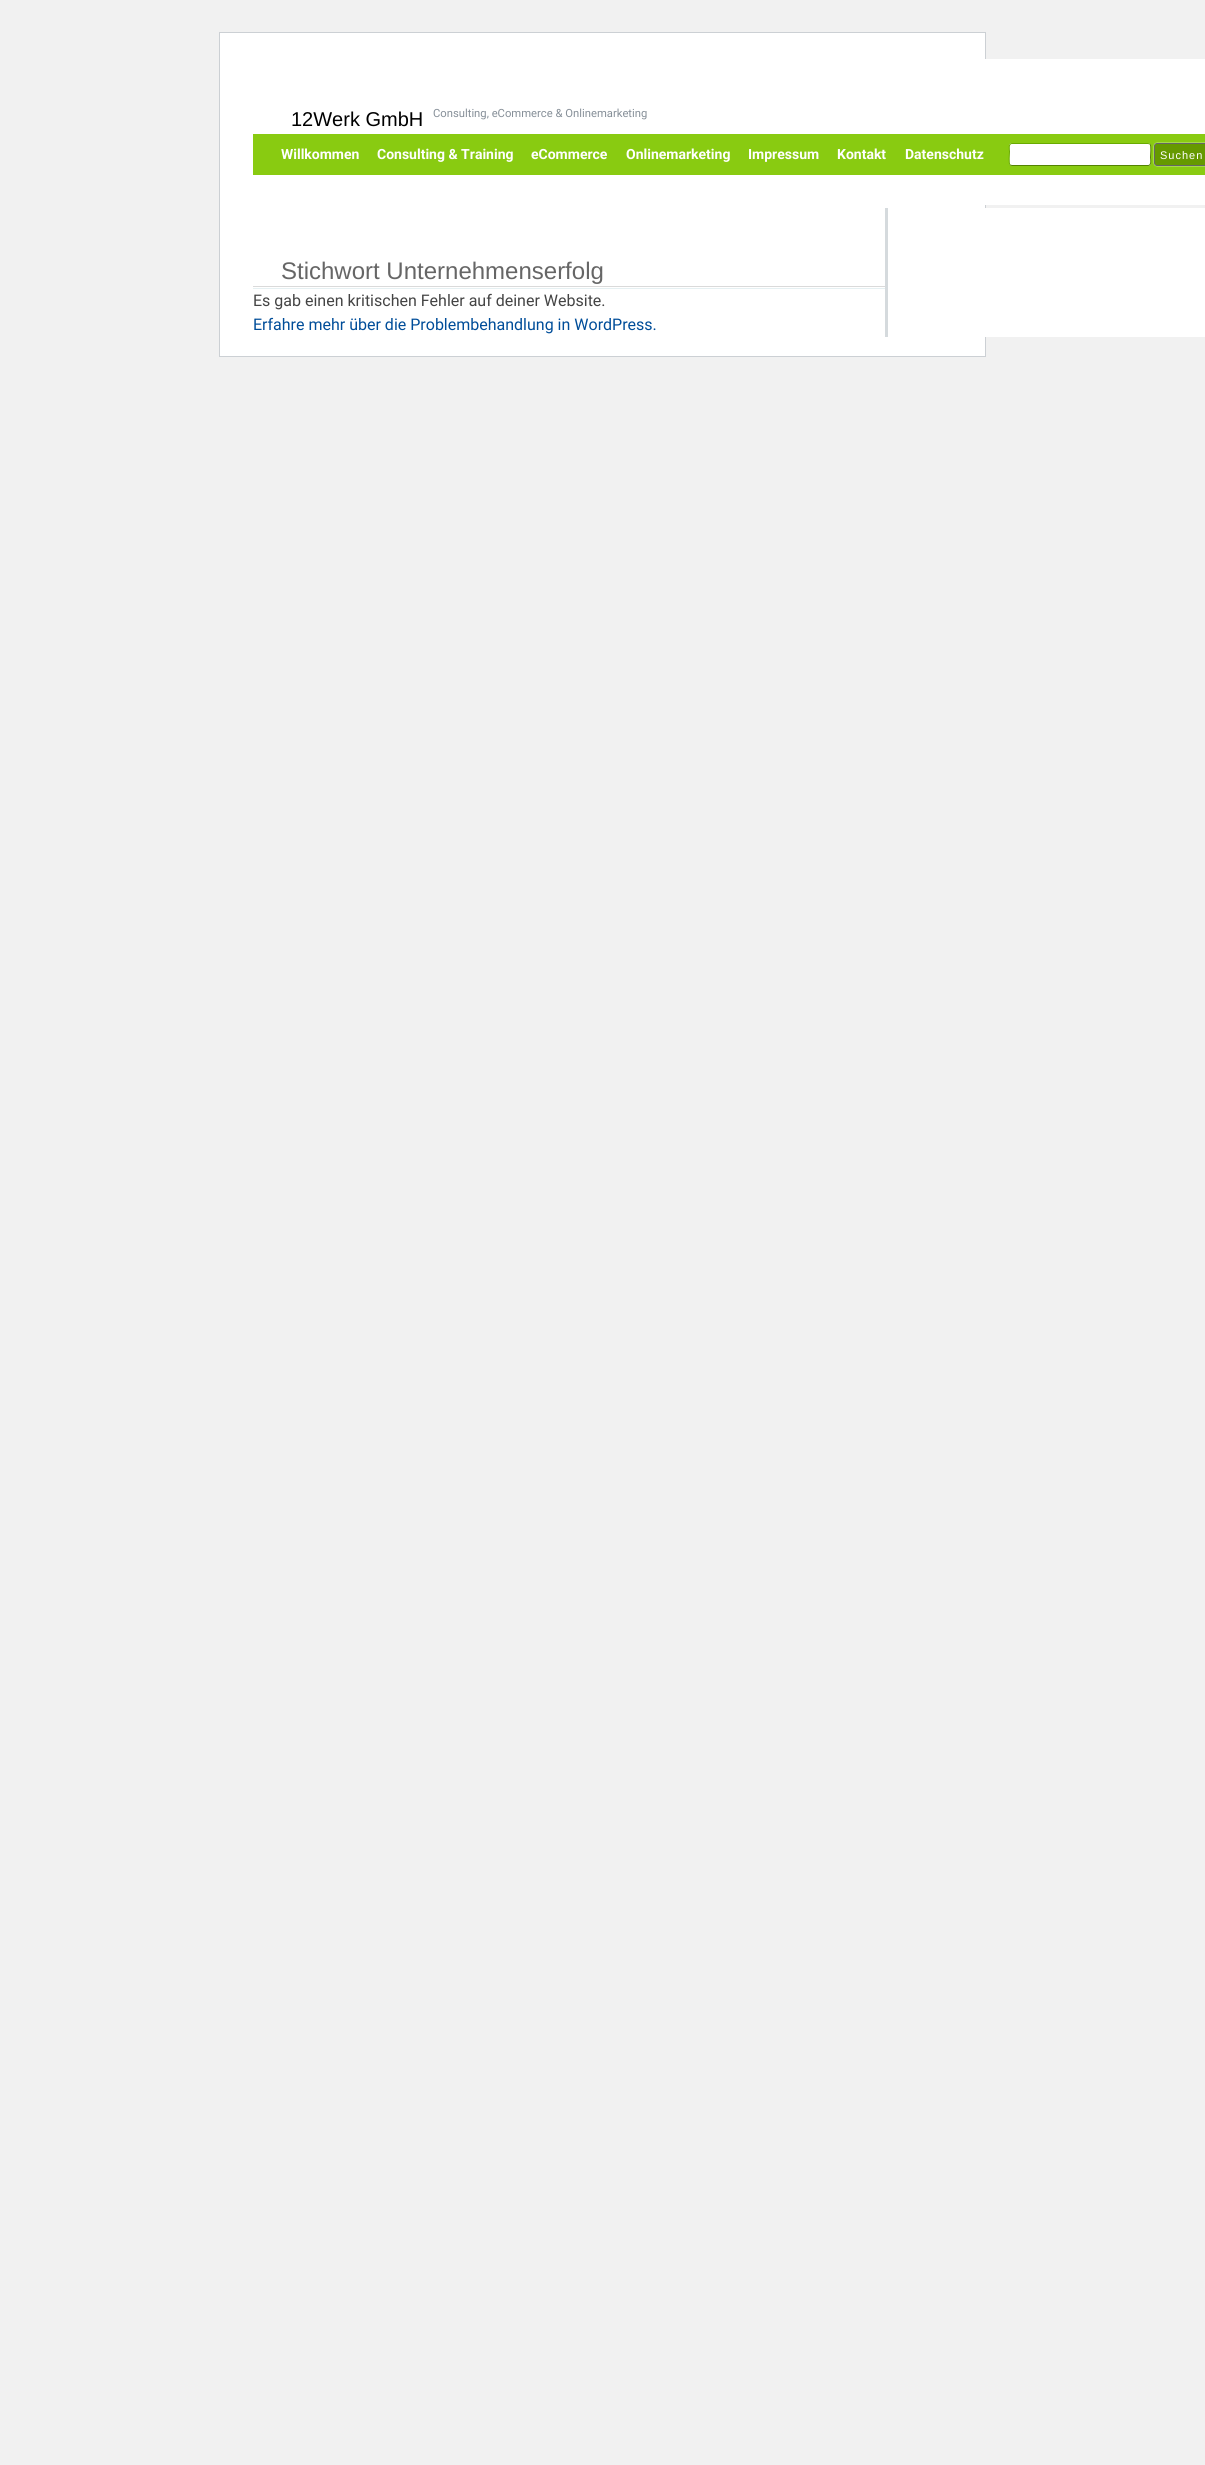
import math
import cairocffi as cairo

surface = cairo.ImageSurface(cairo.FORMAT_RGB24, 1205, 2465)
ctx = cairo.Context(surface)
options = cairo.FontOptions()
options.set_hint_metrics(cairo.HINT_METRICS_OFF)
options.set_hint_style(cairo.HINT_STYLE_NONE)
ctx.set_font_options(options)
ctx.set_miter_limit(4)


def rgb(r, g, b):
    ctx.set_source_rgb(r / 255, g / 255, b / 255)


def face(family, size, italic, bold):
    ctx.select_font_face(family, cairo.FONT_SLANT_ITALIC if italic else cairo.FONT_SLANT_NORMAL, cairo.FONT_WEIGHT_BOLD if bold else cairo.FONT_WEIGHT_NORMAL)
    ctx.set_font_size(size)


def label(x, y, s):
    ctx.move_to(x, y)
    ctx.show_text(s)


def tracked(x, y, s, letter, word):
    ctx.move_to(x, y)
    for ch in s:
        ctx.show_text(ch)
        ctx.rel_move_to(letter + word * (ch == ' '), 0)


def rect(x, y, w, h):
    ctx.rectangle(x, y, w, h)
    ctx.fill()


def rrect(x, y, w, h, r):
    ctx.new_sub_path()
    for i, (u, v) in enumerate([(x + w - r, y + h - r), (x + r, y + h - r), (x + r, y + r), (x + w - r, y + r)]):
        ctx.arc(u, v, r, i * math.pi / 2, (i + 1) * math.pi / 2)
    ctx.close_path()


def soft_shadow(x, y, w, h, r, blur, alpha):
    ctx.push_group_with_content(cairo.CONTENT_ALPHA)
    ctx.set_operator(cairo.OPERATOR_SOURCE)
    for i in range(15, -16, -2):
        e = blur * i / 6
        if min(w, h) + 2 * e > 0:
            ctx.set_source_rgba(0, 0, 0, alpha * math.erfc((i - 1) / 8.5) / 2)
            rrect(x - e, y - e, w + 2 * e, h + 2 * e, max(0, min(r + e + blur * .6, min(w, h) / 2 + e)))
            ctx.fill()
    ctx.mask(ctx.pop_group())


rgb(241, 241, 241)
ctx.paint()
rgb(255, 255, 255)
ctx.rectangle(219.5, 32.5, 766, 324)
ctx.fill_preserve()
rgb(204, 208, 212)
ctx.set_line_width(1)
ctx.stroke()
rgb(255, 255, 255)
rect(985, 59, 220, 146)
face('Liberation Sans', 20, 0, 0)
rgb(0, 0, 0)
label(291, 126, '12Werk GmbH')
face('Roboto', 11.25, 0, 0)
rgb(134, 143, 152)
label(433, 117, 'Consulting, eCommerce & Onlinemarketing')
rgb(137, 203, 17)
rect(253, 134, 952, 41)
face('Roboto', 14, 0, 1)
rgb(255, 255, 255)
label(281, 159, 'Willkommen')
label(377, 159, 'Consulting & Training')
label(531, 159, 'eCommerce')
label(626, 159, 'Onlinemarketing')
label(748, 159, 'Impressum')
label(837, 159, 'Kontakt')
label(905, 159, 'Datenschutz')
rrect(1009, 143, 142, 23, 3)
ctx.fill()
ctx.new_path()
ctx.move_to(1150, 144)
ctx.curve_to(1151.5, 146, 1150.5, 155, 1150.5, 157.5)
ctx.curve_to(1150.5, 159, 1152, 165.5, 1148, 165.5)
ctx.line_to(1012, 165.5)
ctx.line_to(1010, 165)
rgb(84, 131, 1)
ctx.stroke()
ctx.new_path()
ctx.move_to(1010, 165)
ctx.curve_to(1008.5, 163, 1009.5, 154, 1009.5, 151.5)
ctx.curve_to(1009.5, 150, 1008, 143.5, 1012, 143.5)
ctx.line_to(1148, 143.5)
ctx.line_to(1150, 144)
rgb(105, 171, 1)
ctx.stroke()
rgb(255, 255, 255)
soft_shadow(1154, 143, 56, 23, 3, 0.5, 1)
rgb(102, 153, 0)
rrect(1154.5, 143.5, 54, 22, 2.5)
ctx.fill_preserve()
rgb(102, 102, 102)
ctx.stroke()
face('Liberation Sans', 11, 0, 0)
rgb(255, 255, 255)
tracked(1160, 159, 'Suchen', 1, 0)
rect(985, 208, 220, 129)
rgb(213, 218, 221)
rect(885, 208, 3, 129)
rgb(218, 218, 218)
rect(253, 286, 632, 1)
face('Liberation Sans', 24, 0, 0)
rgb(102, 102, 102)
label(281, 279, 'Stichwort Unternehmenserfolg')
rgb(230, 240, 242)
rect(253, 288, 632, 1)
face('Roboto', 16, 0, 0)
rgb(68, 68, 68)
label(253, 306, 'Es gab einen kritischen Fehler auf deiner Website.')
rgb(0, 77, 153)
label(253, 330, 'Erfahre mehr über die Problembehandlung in WordPress.')
surface.write_to_png('render.png')
